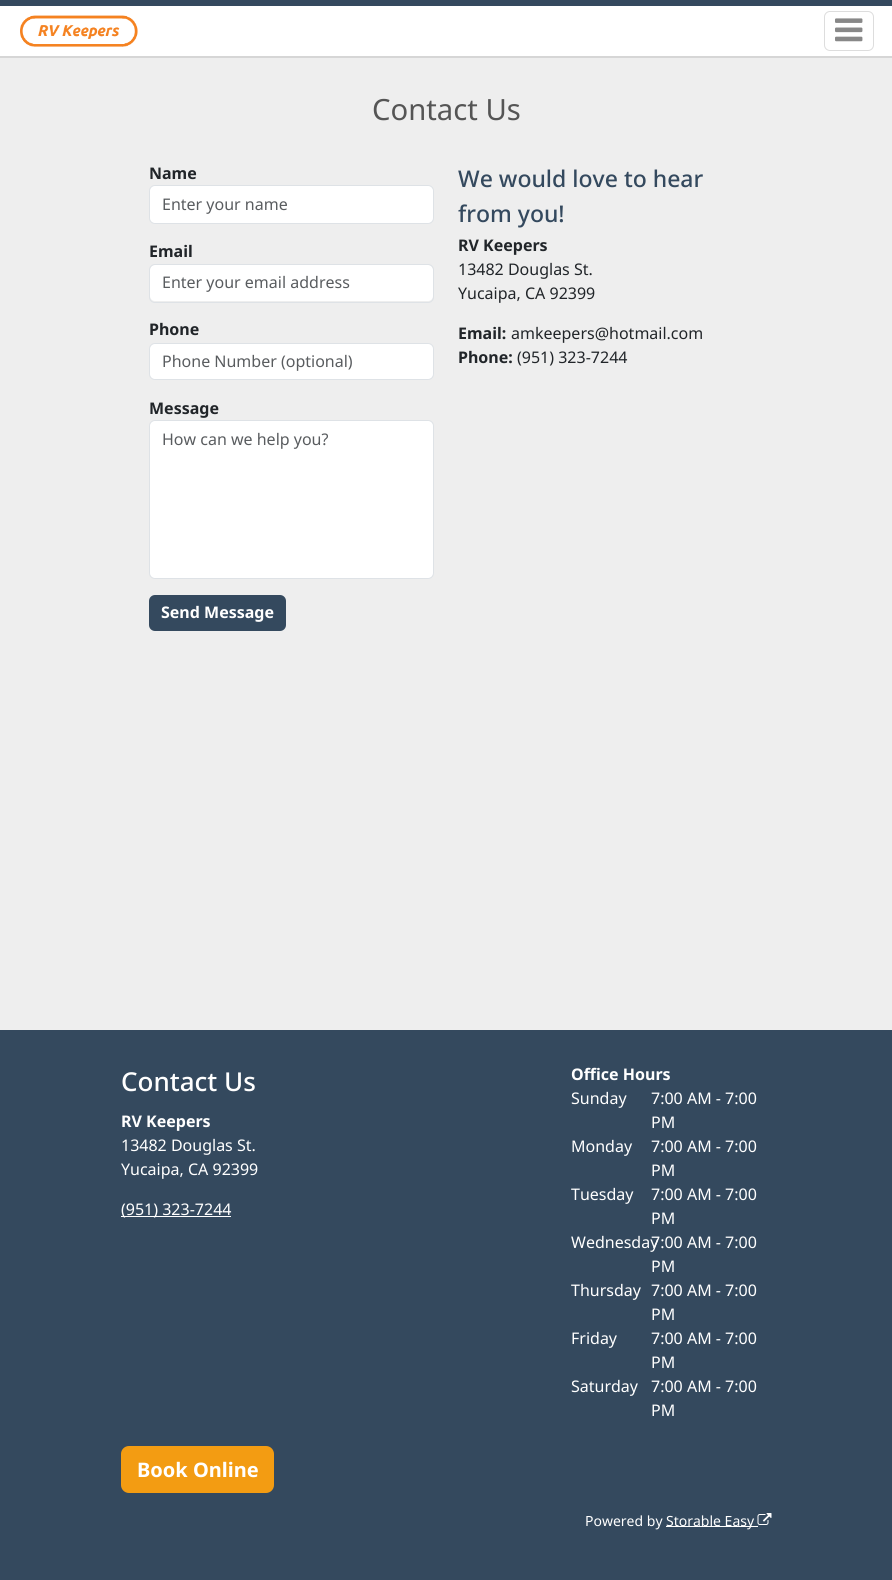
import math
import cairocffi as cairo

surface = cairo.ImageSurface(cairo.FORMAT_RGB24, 892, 1580)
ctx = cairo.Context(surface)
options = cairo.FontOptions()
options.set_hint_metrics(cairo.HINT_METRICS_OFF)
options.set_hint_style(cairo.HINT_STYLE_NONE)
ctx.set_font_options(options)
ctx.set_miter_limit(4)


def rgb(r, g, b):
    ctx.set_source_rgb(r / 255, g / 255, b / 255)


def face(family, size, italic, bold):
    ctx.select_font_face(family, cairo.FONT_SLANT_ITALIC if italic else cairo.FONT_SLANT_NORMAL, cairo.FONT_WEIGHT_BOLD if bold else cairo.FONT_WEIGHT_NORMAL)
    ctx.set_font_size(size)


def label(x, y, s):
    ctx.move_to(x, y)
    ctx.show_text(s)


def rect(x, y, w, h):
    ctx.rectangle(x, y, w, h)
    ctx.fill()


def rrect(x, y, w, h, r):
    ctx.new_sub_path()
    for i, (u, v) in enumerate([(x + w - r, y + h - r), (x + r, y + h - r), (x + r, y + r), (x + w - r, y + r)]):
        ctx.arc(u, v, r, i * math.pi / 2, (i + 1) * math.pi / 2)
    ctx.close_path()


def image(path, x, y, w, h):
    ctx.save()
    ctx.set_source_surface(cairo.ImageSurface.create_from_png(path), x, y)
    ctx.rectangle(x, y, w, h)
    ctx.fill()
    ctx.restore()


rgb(238, 238, 238)
ctx.paint()
rgb(214, 214, 214)
ctx.new_path()
ctx.move_to(0, 56)
ctx.line_to(0, 58)
ctx.line_to(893, 58)
ctx.line_to(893, 1)
ctx.line_to(892, 1)
ctx.line_to(892, 56)
ctx.close_path()
ctx.fill()
rgb(255, 255, 255)
rect(0, 6, 892, 50)
rgb(52, 73, 94)
rect(0, 0, 892, 6)
image('image0.png', 20, 15, 118, 32)
rrect(824.5, 11.5, 49, 39, 5.5)
rgb(221, 221, 221)
ctx.set_line_width(1)
ctx.stroke()
image('image1.png', 835, 18, 28, 24)
face('Noto Sans', 29.25, 0, 0)
rgb(85, 85, 85)
label(372, 120, 'Contact Us')
face('Noto Sans', 16, 0, 1)
rgb(33, 37, 41)
label(149, 179, 'Name')
rgb(255, 255, 255)
rrect(149.5, 185.5, 284, 38, 5.5)
ctx.fill_preserve()
rgb(222, 226, 230)
ctx.stroke()
face('Noto Sans', 16, 0, 0)
rgb(89, 92, 95)
label(162, 210, 'Enter your name')
face('Noto Sans', 16, 0, 1)
rgb(33, 37, 41)
label(149, 257, 'Email')
rgb(255, 255, 255)
rrect(150, 265, 283, 36, 5)
ctx.fill()
rrect(149.5, 264.5, 284, 38, 5.5)
rgb(222, 226, 230)
ctx.stroke()
face('Noto Sans', 16, 0, 0)
rgb(89, 92, 95)
label(162, 288, 'Enter your email address')
face('Noto Sans', 16, 0, 1)
rgb(33, 37, 41)
label(149, 335, 'Phone')
rgb(255, 255, 255)
rrect(149.5, 343.5, 284, 36, 5.5)
ctx.fill_preserve()
rgb(222, 226, 230)
ctx.stroke()
face('Noto Sans', 16, 0, 0)
rgb(89, 92, 95)
label(162, 367, 'Phone Number (optional)')
face('Noto Sans', 16, 0, 1)
rgb(33, 37, 41)
label(149, 414, 'Message')
rgb(255, 255, 255)
rrect(149.5, 420.5, 284, 158, 5.5)
ctx.fill_preserve()
rgb(222, 226, 230)
ctx.stroke()
face('Noto Sans', 16, 0, 0)
rgb(89, 92, 95)
label(162, 445, 'How can we help you?')
rgb(52, 73, 94)
rrect(149, 595, 137, 36, 6)
ctx.fill()
face('Noto Sans', 16, 0, 1)
rgb(255, 255, 255)
label(161, 618, 'Send Message')
face('Noto Sans Medium', 23, 0, 0)
rgb(52, 73, 94)
label(458, 187, 'We would love to hear')
label(458, 222, 'from you!')
face('Noto Sans', 16, 0, 1)
rgb(33, 37, 41)
label(458, 251, 'RV Keepers')
face('Noto Sans', 16, 0, 0)
label(458, 275, '13482 Douglas St.')
label(458, 299, 'Yucaipa, CA 92399')
face('Noto Sans', 16, 0, 1)
label(458, 339, 'Email:')
face('Noto Sans', 16, 0, 0)
label(511, 339, 'amkeepers@hotmail.com')
face('Noto Sans', 16, 0, 1)
label(458, 363, 'Phone:')
face('Noto Sans', 16, 0, 0)
label(517, 363, '(951) 323-7244')
rgb(52, 73, 94)
rect(0, 1030, 892, 550)
face('Noto Sans Medium', 26, 0, 0)
rgb(255, 255, 255)
label(121, 1091, 'Contact Us')
face('Noto Sans', 16, 0, 1)
label(121, 1127, 'RV Keepers')
face('Noto Sans', 16, 0, 0)
label(121, 1151, '13482 Douglas St.')
label(121, 1175, 'Yucaipa, CA 92399')
rect(121, 1216, 110, 1)
label(121, 1215, '(951) 323-7244')
face('Noto Sans', 16, 0, 1)
label(571, 1080, 'Office Hours')
face('Noto Sans', 16, 0, 0)
label(571, 1104, 'Sunday')
label(651, 1104, '7:00 AM - 7:00')
label(651, 1128, 'PM')
label(571, 1152, 'Monday')
label(651, 1152, '7:00 AM - 7:00')
label(651, 1176, 'PM')
label(571, 1200, 'Tuesday')
label(651, 1200, '7:00 AM - 7:00')
label(651, 1224, 'PM')
label(571, 1248, 'Wednesday')
label(651, 1248, '7:00 AM - 7:00')
label(651, 1272, 'PM')
label(571, 1296, 'Thursday')
label(651, 1296, '7:00 AM - 7:00')
label(651, 1320, 'PM')
label(571, 1344, 'Friday')
label(651, 1344, '7:00 AM - 7:00')
label(651, 1368, 'PM')
label(571, 1392, 'Saturday')
label(651, 1392, '7:00 AM - 7:00')
label(651, 1416, 'PM')
rgb(243, 156, 18)
rrect(121, 1446, 153, 47, 8)
ctx.fill()
face('Noto Sans', 20, 0, 1)
rgb(255, 255, 255)
label(137, 1477, 'Book Online')
face('Noto Sans', 14, 0, 0)
label(585, 1526, 'Powered by')
rect(666, 1526, 92, 1)
label(666, 1526, 'Storable Easy')
image('image2.png', 757, 1513, 15, 12)
surface.write_to_png('render.png')
